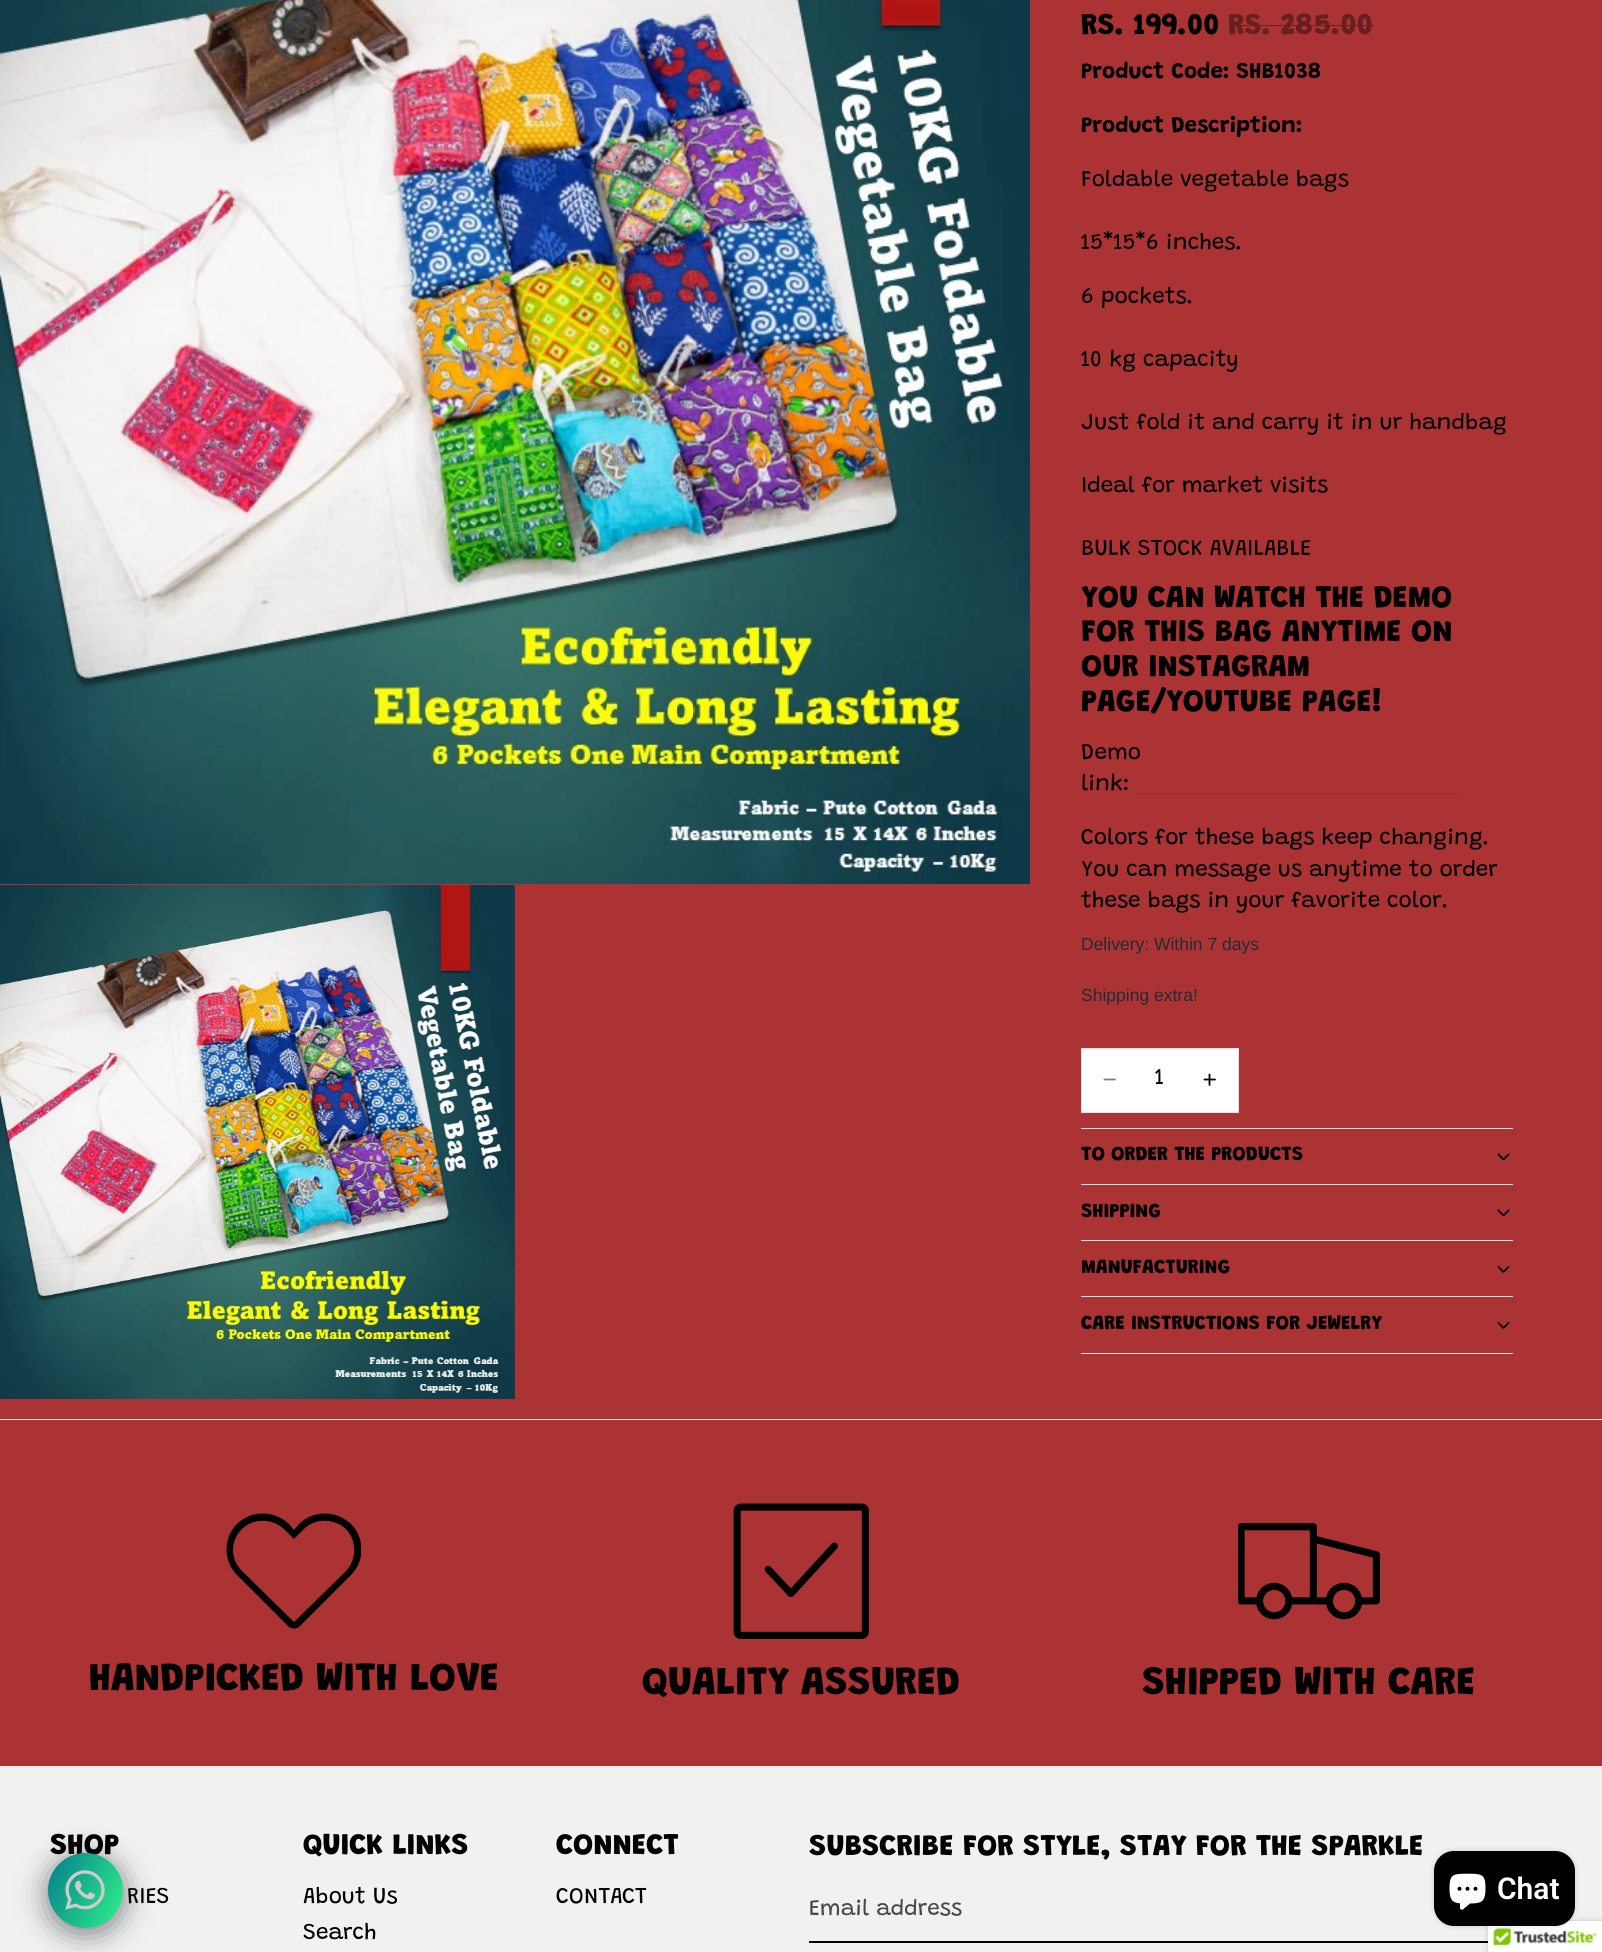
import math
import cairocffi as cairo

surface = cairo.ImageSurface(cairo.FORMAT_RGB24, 1602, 1952)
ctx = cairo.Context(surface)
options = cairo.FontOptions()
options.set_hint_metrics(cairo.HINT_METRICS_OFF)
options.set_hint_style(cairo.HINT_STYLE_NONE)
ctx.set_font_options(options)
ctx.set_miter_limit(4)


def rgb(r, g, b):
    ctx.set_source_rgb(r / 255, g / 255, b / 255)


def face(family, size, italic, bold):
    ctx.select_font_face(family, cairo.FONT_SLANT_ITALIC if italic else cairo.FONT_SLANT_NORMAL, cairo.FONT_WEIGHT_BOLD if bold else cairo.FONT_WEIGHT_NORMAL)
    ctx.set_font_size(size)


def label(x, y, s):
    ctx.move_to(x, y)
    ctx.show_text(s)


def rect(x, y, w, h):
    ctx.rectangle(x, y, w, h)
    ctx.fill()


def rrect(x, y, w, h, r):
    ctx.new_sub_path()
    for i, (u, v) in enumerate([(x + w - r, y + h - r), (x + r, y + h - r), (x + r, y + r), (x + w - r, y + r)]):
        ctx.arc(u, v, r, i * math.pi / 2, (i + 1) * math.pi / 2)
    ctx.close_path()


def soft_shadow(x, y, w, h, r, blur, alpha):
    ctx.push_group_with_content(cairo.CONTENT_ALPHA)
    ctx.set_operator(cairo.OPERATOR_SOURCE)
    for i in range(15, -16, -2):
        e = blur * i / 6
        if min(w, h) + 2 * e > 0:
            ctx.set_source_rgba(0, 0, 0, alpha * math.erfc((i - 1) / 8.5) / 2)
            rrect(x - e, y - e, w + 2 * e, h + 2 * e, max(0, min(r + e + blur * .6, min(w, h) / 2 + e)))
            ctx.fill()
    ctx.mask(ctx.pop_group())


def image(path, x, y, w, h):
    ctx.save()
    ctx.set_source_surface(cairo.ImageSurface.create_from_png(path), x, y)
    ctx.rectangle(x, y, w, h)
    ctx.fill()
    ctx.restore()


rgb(171, 51, 52)
ctx.paint()
image('image0.png', 0, 0, 1030, 884)
image('image1.png', 0, 885, 515, 514)
face('Grandstander ExtraBold', 30, 0, 0)
rgb(0, 0, 0)
label(1081, 34, 'RS. 199.00')
rgb(103, 31, 31)
label(1228, 34, 'RS. 285.00')
rect(1229, 25, 145, 1)
face('Grandstander', 22.5, 0, 1)
rgb(0, 0, 0)
label(1081, 78, 'Product Code: SHB1038')
label(1081, 132, 'Product Description:')
face('Grandstander', 22.5, 0, 0)
label(1081, 186, 'Foldable vegetable bags')
label(1081, 249, '15*15*6 inches.')
label(1081, 303, '6 pockets.')
label(1081, 366, '10 kg capacity')
label(1081, 429, 'Just fold it and carry it in ur handbag')
label(1081, 492, 'Ideal for market visits')
label(1081, 555, 'BULK STOCK AVAILABLE')
face('Grandstander ExtraBold', 31.5, 0, 0)
label(1081, 607, 'YOU CAN WATCH THE DEMO')
label(1081, 641, 'FOR THIS BAG ANYTIME ON')
label(1081, 676, 'OUR INSTAGRAM')
label(1081, 711, 'PAGE/YOUTUBE PAGE!')
face('Grandstander', 22.5, 0, 0)
label(1081, 759, 'Demo')
label(1081, 790, 'link:')
rgb(164, 35, 37)
rect(1136, 793, 325, 1)
rgb(0, 0, 0)
label(1081, 844, 'Colors for these bags keep changing.')
label(1081, 876, 'You can message us anytime to order')
label(1081, 907, 'these bags in your favorite color.')
face('Liberation Sans', 17.5, 0, 0)
rgb(33, 43, 54)
label(1081, 950, 'Delivery: Within 7 days')
label(1081, 1001, 'Shipping extra!')
rgb(255, 255, 255)
ctx.rectangle(1081.5, 1048.5, 157, 64)
ctx.fill_preserve()
rgb(230, 230, 230)
ctx.set_line_width(1)
ctx.stroke()
ctx.new_path()
ctx.move_to(1104.5, 1079.5)
ctx.line_to(1115, 1079.5)
rgb(128, 128, 128)
ctx.set_line_width(1.8)
ctx.set_line_cap(cairo.LINE_CAP_ROUND)
ctx.stroke()
face('Grandstander', 22.5, 0, 0)
rgb(0, 0, 0)
label(1155, 1084, '1')
ctx.new_path()
ctx.move_to(1204.5, 1079.5)
ctx.line_to(1215, 1079.5)
ctx.move_to(1209.5, 1074.5)
ctx.line_to(1209.5, 1085)
ctx.stroke()
rgb(230, 230, 230)
rect(1081, 1128, 432, 1)
face('Grandstander ExtraBold', 20, 0, 0)
rgb(0, 0, 0)
label(1081, 1160, 'TO ORDER THE PRODUCTS')
ctx.new_path()
ctx.move_to(1508.5, 1154.5)
ctx.line_to(1503.5, 1159.5)
ctx.line_to(1498.5, 1154.5)
ctx.set_line_join(cairo.LINE_JOIN_ROUND)
ctx.stroke()
rgb(230, 230, 230)
rect(1081, 1184, 432, 1)
rgb(0, 0, 0)
label(1081, 1217, 'SHIPPING')
ctx.new_path()
ctx.move_to(1508.5, 1210.5)
ctx.line_to(1503.5, 1215.5)
ctx.line_to(1498.5, 1210.5)
ctx.stroke()
rgb(230, 230, 230)
rect(1081, 1240, 432, 1)
rgb(0, 0, 0)
label(1081, 1273, 'MANUFACTURING')
rgb(230, 230, 230)
rect(1081, 1296, 432, 1)
ctx.new_path()
ctx.move_to(1508.5, 1267)
ctx.line_to(1503.5, 1272)
ctx.line_to(1498.5, 1267)
ctx.move_to(1508.5, 1323)
ctx.line_to(1503.5, 1328)
ctx.line_to(1498.5, 1323)
rgb(0, 0, 0)
ctx.stroke()
rgb(230, 230, 230)
rect(1081, 1353, 432, 1)
rgb(0, 0, 0)
label(1081, 1329, 'CARE INSTRUCTIONS FOR JEWELRY')
rgb(230, 230, 230)
rect(0, 1419, 1602, 1)
ctx.save()
ctx.rectangle(226, 1504, 135, 135)
ctx.clip()
rgb(0, 0, 0)
ctx.set_fill_rule(cairo.FILL_RULE_EVEN_ODD)
ctx.new_path()
ctx.move_to(294, 1539)
ctx.line_to(284, 1529)
ctx.curve_to(272, 1518, 253, 1518, 242, 1529)
ctx.curve_to(230, 1541, 230, 1559, 242, 1571)
ctx.line_to(294, 1622)
ctx.line_to(346, 1571)
ctx.curve_to(357, 1559, 357, 1541, 346, 1529)
ctx.curve_to(334, 1518, 315, 1518, 304, 1529)
ctx.close_path()
ctx.move_to(299, 1524)
ctx.curve_to(313, 1510, 336, 1510, 351, 1524)
ctx.curve_to(365, 1538, 365, 1561, 351, 1575)
ctx.line_to(299, 1627)
ctx.curve_to(296, 1629, 292, 1629, 289, 1627)
ctx.line_to(237, 1575)
ctx.curve_to(223, 1561, 223, 1538, 237, 1524)
ctx.curve_to(251, 1510, 274, 1510, 289, 1524)
ctx.line_to(294, 1530)
ctx.close_path()
ctx.fill()
ctx.restore()
face('Grandstander ExtraBold', 40, 0, 0)
rgb(0, 0, 0)
label(89, 1690, 'HANDPICKED WITH LOVE')
image('image2.png', 733, 1503, 136, 136)
label(642, 1694, 'QUALITY ASSURED')
image('image3.png', 1238, 1523, 142, 97)
label(1142, 1694, 'SHIPPED WITH CARE')
rgb(241, 241, 241)
rect(0, 1766, 1602, 186)
rgb(2, 6, 16)
soft_shadow(48, 1858, 75, 75, 37.5, 15, 0.5)
face('Grandstander ExtraBold', 30, 0, 0)
rgb(0, 0, 0)
label(50, 1854, 'SHOP')
gradient = cairo.LinearGradient(40, 1869, 130, 1911)
gradient.add_color_stop_rgba(0, 0.016, 0.486, 0.553, 1)
gradient.add_color_stop_rgba(1, 0.184, 0.949, 0.537, 1)
ctx.set_source(gradient)
ctx.new_path()
ctx.arc(85.5, 1890.5, 37.5, 0, 2 * math.pi)
ctx.fill()
image('image4.png', 65, 1870, 40, 40)
face('Grandstander', 22.5, 0, 0)
rgb(0, 0, 0)
label(127, 1903, 'RIES')
face('Grandstander ExtraBold', 30, 0, 0)
label(303, 1854, 'QUICK LINKS')
face('Grandstander', 22.5, 0, 0)
label(303, 1903, 'About Us')
label(303, 1939, 'Search')
face('Grandstander ExtraBold', 30, 0, 0)
label(556, 1854, 'CONNECT')
face('Grandstander', 22.5, 0, 0)
label(556, 1903, 'CONTACT')
face('Grandstander ExtraBold', 30, 0, 0)
label(809, 1855, 'SUBSCRIBE FOR STYLE, STAY FOR THE SPARKLE')
ctx.new_path()
ctx.move_to(809, 1941)
ctx.line_to(809, 1943)
ctx.line_to(1553, 1943)
ctx.line_to(1553, 1881)
ctx.line_to(1552, 1881)
ctx.line_to(1552, 1941)
ctx.close_path()
ctx.fill()
face('Grandstander', 22.5, 0, 0)
rgb(72, 72, 72)
label(809, 1915, 'Email address')
rgb(0, 0, 0)
soft_shadow(1488, 1921, 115, 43, 2.5, 3, 0.2)
rgb(255, 255, 255)
rect(1488, 1921, 114, 31)
image('image6.png', 1493, 1921, 109, 25)
rgb(0, 0, 0)
soft_shadow(1434, 1851, 141, 75, 20, 3, 0.15)
rgb(0, 0, 0)
rrect(1434, 1851, 141, 75, 20)
ctx.fill()
image('image5.png', 1449, 1873, 37, 37)
face('Roboto SemiBold', 30, 0, 0)
rgb(255, 255, 255)
label(1497, 1899, 'Chat')
surface.write_to_png('render.png')
